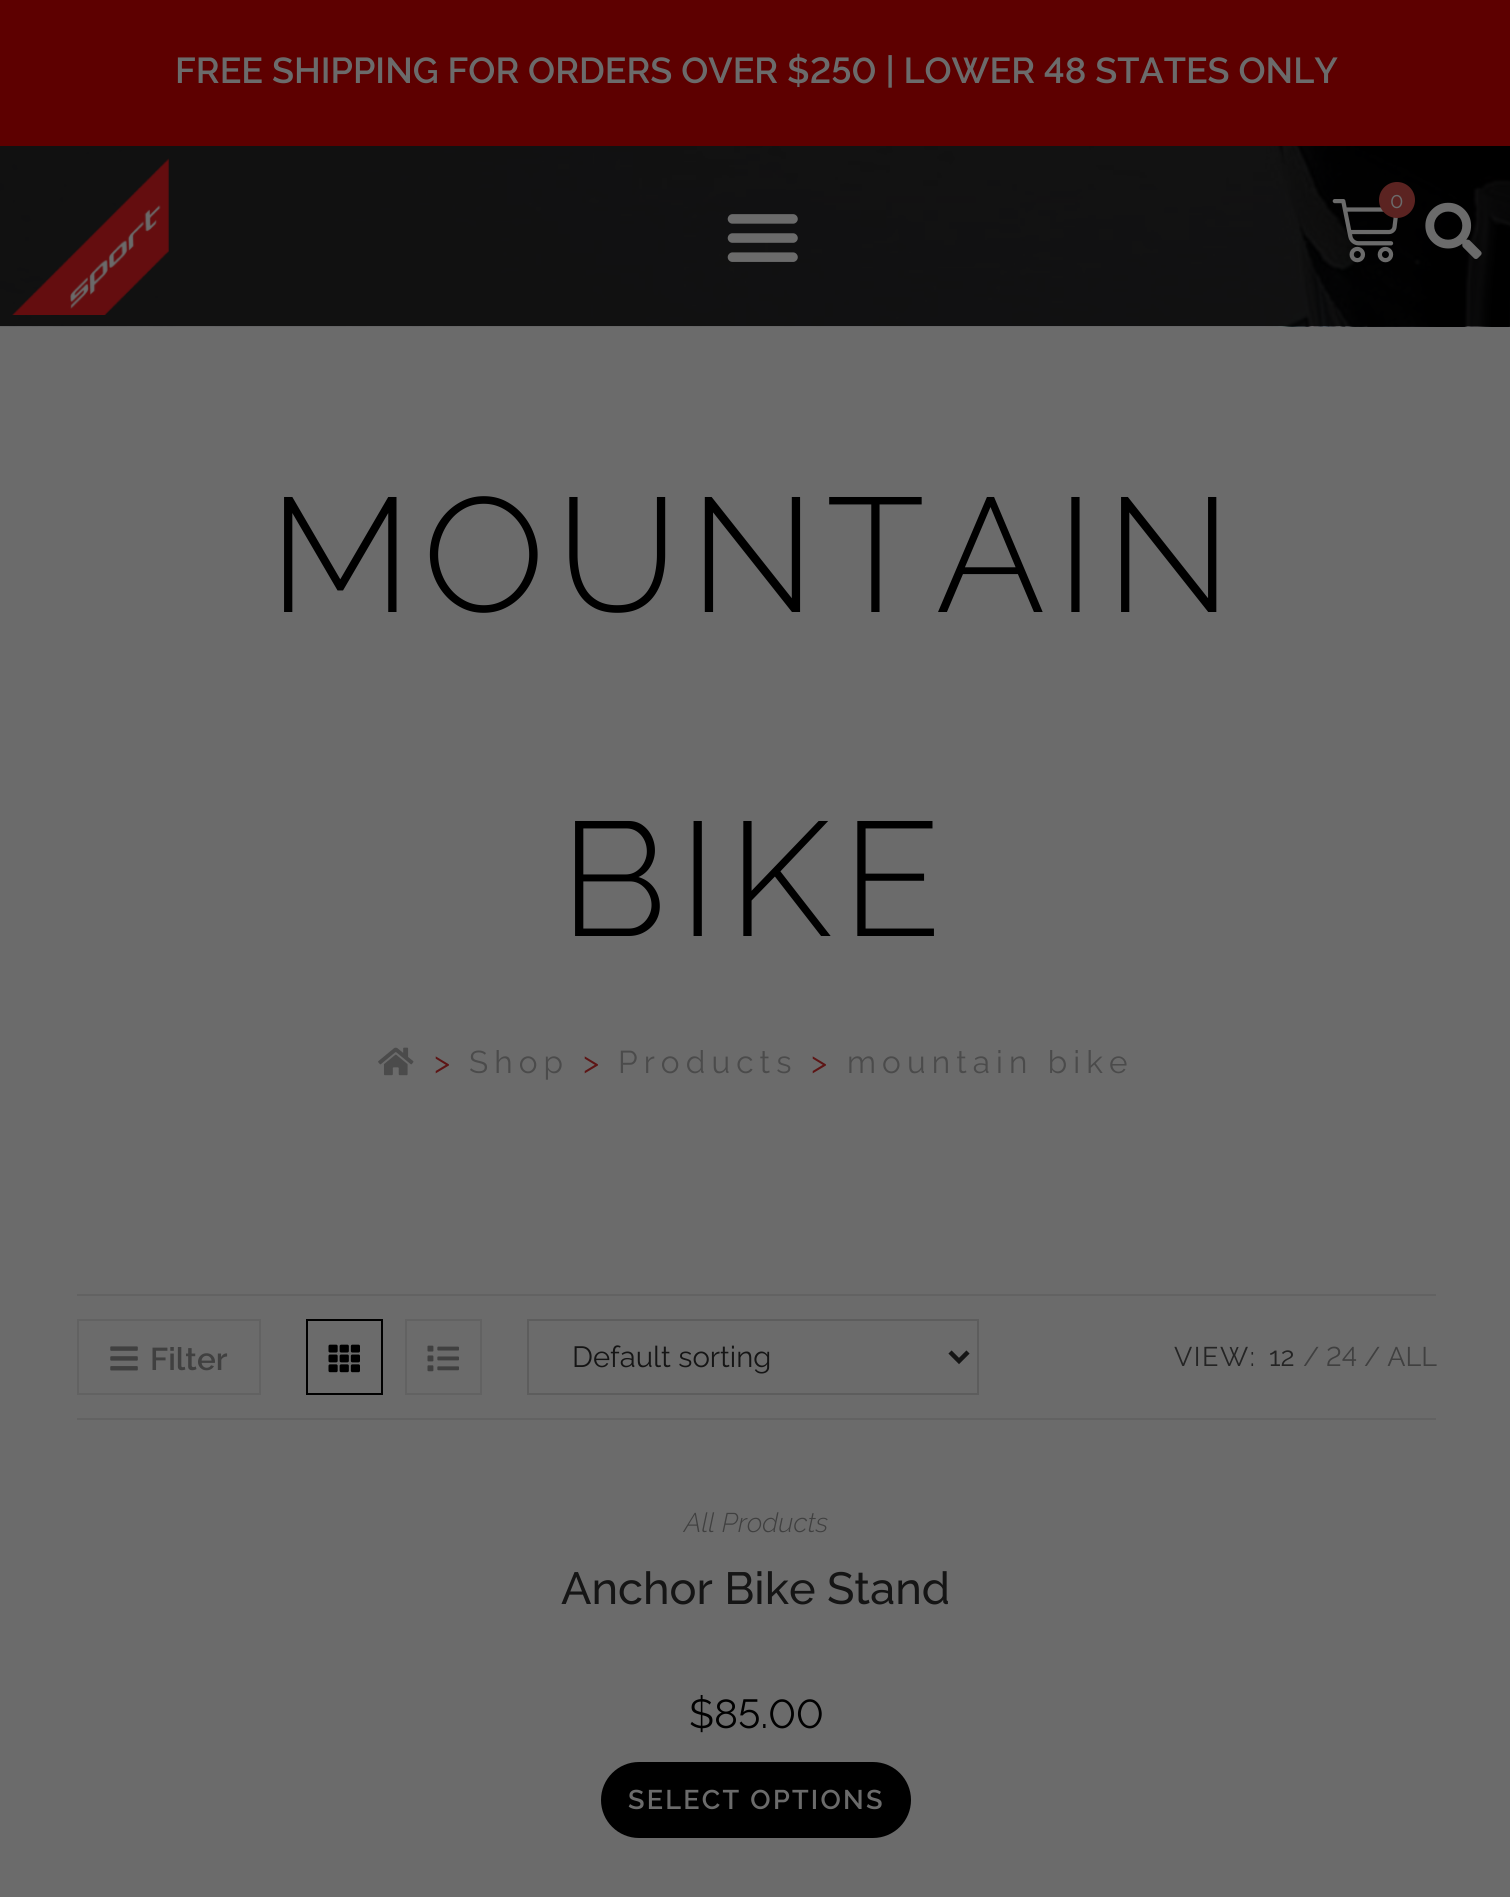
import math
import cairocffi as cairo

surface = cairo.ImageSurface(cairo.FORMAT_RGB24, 1510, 1897)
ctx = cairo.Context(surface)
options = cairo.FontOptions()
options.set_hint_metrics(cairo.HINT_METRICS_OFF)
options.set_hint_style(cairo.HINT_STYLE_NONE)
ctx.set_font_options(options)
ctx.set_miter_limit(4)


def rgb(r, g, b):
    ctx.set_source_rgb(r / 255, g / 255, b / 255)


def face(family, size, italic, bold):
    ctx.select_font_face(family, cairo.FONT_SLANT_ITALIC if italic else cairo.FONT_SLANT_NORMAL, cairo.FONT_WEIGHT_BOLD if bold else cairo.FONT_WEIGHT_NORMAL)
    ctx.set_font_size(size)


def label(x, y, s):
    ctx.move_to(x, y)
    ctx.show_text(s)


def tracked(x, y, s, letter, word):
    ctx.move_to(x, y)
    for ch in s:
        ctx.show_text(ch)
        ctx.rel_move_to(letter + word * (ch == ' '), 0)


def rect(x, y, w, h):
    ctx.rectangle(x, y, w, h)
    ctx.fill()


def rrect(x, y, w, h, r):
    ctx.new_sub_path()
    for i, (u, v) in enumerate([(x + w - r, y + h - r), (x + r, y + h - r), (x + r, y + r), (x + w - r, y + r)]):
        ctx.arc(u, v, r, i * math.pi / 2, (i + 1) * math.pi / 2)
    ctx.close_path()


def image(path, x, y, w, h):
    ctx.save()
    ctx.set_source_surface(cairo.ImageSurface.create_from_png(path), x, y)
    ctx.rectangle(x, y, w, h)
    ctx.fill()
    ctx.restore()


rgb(107, 107, 107)
ctx.paint()
rgb(93, 0, 0)
rect(0, 0, 1510, 146)
face('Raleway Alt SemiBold', 36, 0, 0)
rgb(107, 107, 107)
label(175, 83, 'FREE SHIPPING FOR ORDERS OVER $250 | LOWER 48 STATES ONLY')
image('image0.png', 0, 146, 1510, 181)
image('image1.png', 12, 158, 157, 157)
image('image2.png', 1332, 199, 66, 64)
rgb(91, 35, 33)
ctx.arc(1397, 200, 18, 0, 2 * math.pi)
ctx.fill()
face('Raleway', 22, 0, 0)
rgb(107, 107, 107)
label(1390, 208, '0')
image('image3.png', 1425, 202, 57, 57)
image('image4.png', 727, 214, 71, 48)
face('Raleway Light', 162, 0, 0)
rgb(0, 0, 0)
tracked(269, 612, 'MOUNTAIN', 11.25, 0)
tracked(560, 936, 'BIKE', 11.25, 0)
image('image5.png', 378, 1047, 36, 29)
face('Raleway', 31.5, 0, 0)
rgb(93, 21, 21)
tracked(434, 1073, '>', 6.1, 0)
rgb(75, 75, 75)
tracked(469, 1073, 'Shop', 6.1, 0)
rgb(93, 21, 21)
tracked(583, 1073, '>', 6.1, 0)
rgb(75, 75, 75)
tracked(618, 1073, 'Products', 6.1, 0)
rgb(93, 21, 21)
tracked(811, 1073, '>', 6.1, 0)
rgb(75, 75, 75)
tracked(847, 1073, 'mountain bike', 6.1, 0)
rgb(98, 98, 98)
rect(77, 1294, 1359, 2)
rect(77, 1418, 1359, 2)
ctx.rectangle(78, 1320, 182, 74)
ctx.stroke()
image('image6.png', 110, 1346, 28, 25)
face('Raleway SemiBold', 31.5, 0, 0)
rgb(64, 64, 64)
label(150, 1370, 'Filter')
ctx.rectangle(307, 1320, 75, 74)
rgb(0, 0, 0)
ctx.stroke()
image('image7.png', 328, 1344, 32, 29)
ctx.rectangle(406, 1320, 75, 74)
rgb(98, 98, 98)
ctx.stroke()
image('image8.png', 427, 1345, 32, 27)
ctx.rectangle(528, 1320, 450, 74)
rgb(93, 93, 93)
ctx.stroke()
ctx.new_path()
ctx.move_to(950, 1352)
ctx.line_to(959, 1361)
ctx.line_to(968, 1352)
rgb(21, 21, 21)
ctx.set_line_width(4.5)
ctx.stroke()
face('Raleway', 29.25, 0, 0)
label(572, 1367, 'Default sorting')
face('Raleway', 27, 0, 0)
rgb(36, 36, 36)
tracked(1174, 1366, 'VIEW:', 1.5, 0)
label(1269, 1366, '12')
rgb(64, 64, 64)
label(1303, 1366, '/')
face('Raleway Alt', 27, 0, 0)
label(1326, 1366, '24')
face('Raleway', 27, 0, 0)
label(1364, 1366, '/ ALL')
face('Raleway Light', 27, 1, 0)
label(684, 1532, 'All Products')
face('Raleway Medium', 45, 0, 0)
rgb(21, 21, 21)
label(561, 1604, 'Anchor Bike Stand')
face('Raleway', 40.5, 0, 0)
rgb(0, 0, 0)
label(689, 1728, '$')
face('Raleway Alt', 40.5, 0, 0)
label(714, 1728, '85.00')
rrect(601, 1762, 310, 76, 38)
ctx.fill()
face('Raleway SemiBold', 27, 0, 0)
rgb(107, 107, 107)
tracked(628, 1809, 'SELECT OPTIONS', 2.25, 0)
surface.write_to_png('render.png')
